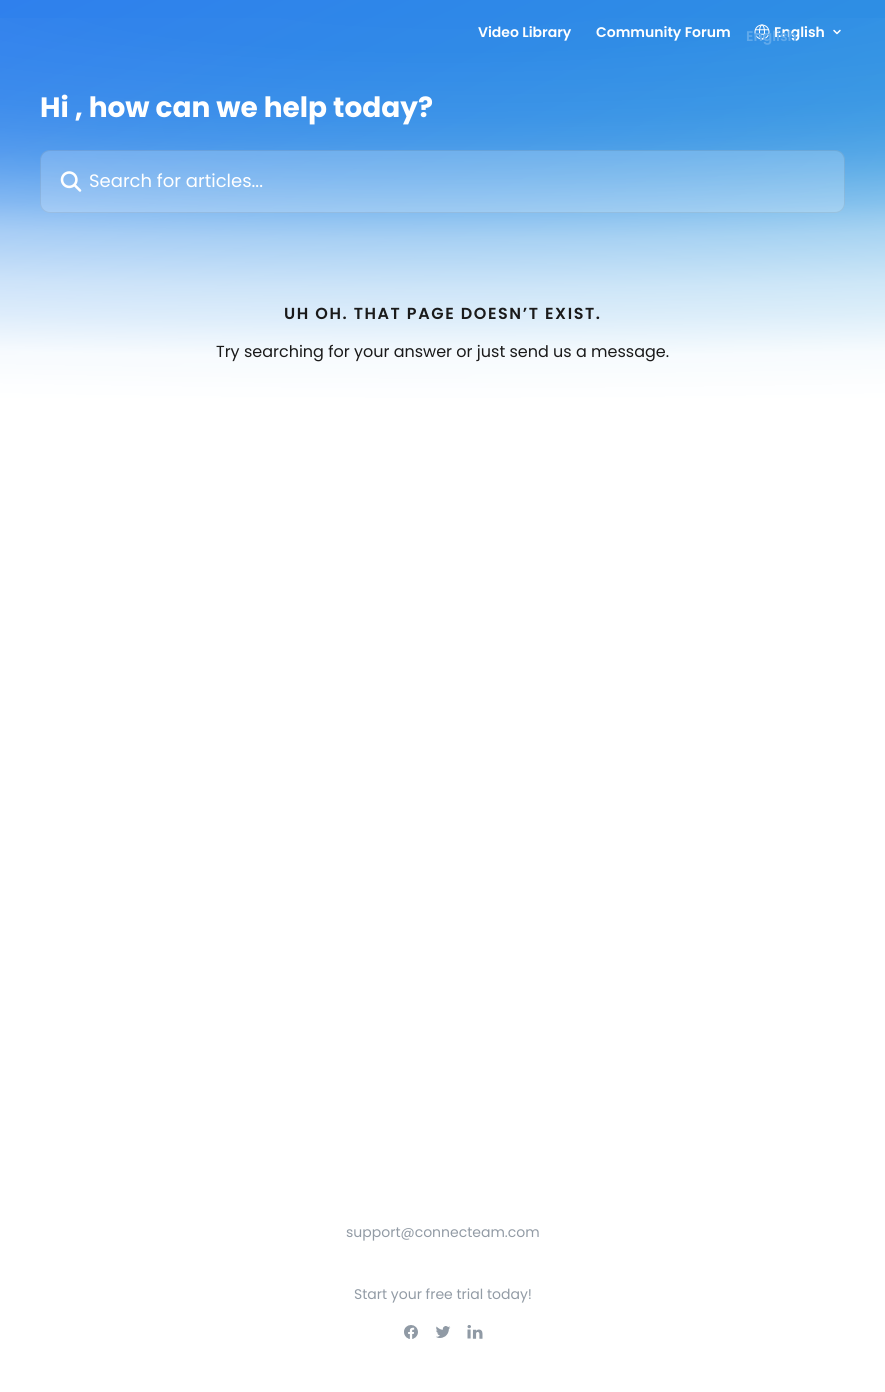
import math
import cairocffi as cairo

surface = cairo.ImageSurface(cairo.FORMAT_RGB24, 885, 1392)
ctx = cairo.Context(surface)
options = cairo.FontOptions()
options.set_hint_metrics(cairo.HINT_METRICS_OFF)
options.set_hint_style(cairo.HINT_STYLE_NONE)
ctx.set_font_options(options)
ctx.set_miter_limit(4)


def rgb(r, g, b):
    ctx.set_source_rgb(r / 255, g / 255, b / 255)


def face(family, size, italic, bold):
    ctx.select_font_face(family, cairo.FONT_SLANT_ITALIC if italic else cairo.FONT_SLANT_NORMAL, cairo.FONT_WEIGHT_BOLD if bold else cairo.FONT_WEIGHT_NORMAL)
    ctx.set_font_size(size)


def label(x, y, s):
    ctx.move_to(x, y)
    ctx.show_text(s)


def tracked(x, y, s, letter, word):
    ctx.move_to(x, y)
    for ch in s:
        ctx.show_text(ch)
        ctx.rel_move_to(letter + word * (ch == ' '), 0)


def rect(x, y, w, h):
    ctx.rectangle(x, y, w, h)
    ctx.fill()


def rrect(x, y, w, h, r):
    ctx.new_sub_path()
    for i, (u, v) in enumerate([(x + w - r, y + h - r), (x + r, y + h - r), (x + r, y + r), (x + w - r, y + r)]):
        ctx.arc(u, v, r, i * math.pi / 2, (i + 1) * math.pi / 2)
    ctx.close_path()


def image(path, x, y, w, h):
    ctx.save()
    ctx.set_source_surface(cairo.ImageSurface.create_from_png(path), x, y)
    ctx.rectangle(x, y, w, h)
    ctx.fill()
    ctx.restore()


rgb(255, 255, 255)
ctx.paint()
gradient = cairo.LinearGradient(289, -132, 596, 537)
gradient.add_color_stop_rgba(0, 0.184, 0.502, 0.929, 1)
gradient.add_color_stop_rgba(1, 0.176, 0.612, 0.859, 1)
ctx.set_source(gradient)
rect(0, 0, 885, 398)
gradient = cairo.RadialGradient(0, 0, 0, 0, 0, 1)
gradient.set_matrix(cairo.Matrix(1 / 2950, 0, 0, 1 / 405, -1 * 443 / 2950, -1 * 0 / 405))
gradient.add_color_stop_rgba(0, 1, 1, 1, 0)
gradient.add_color_stop_rgba(0.12, 1, 1, 1, 0.01)
gradient.add_color_stop_rgba(0.21, 1, 1, 1, 0.04)
gradient.add_color_stop_rgba(0.29, 1, 1, 1, 0.07)
gradient.add_color_stop_rgba(0.35, 1, 1, 1, 0.12)
gradient.add_color_stop_rgba(0.4, 1, 1, 1, 0.18)
gradient.add_color_stop_rgba(0.44, 1, 1, 1, 0.25)
gradient.add_color_stop_rgba(0.48, 1, 1, 1, 0.33)
gradient.add_color_stop_rgba(0.52, 1, 1, 1, 0.41)
gradient.add_color_stop_rgba(0.55, 1, 1, 1, 0.49)
gradient.add_color_stop_rgba(0.59, 1, 1, 1, 0.58)
gradient.add_color_stop_rgba(0.65, 1, 1, 1, 0.67)
gradient.add_color_stop_rgba(0.71, 1, 1, 1, 0.76)
gradient.add_color_stop_rgba(0.79, 1, 1, 1, 0.84)
gradient.add_color_stop_rgba(0.88, 1, 1, 1, 0.96)
gradient.add_color_stop_rgba(1, 1, 1, 1, 1)
ctx.set_source(gradient)
rect(0, 18, 885, 380)
face('Poppins SemiBold', 14, 0, 0)
rgb(255, 255, 255)
label(478, 37, 'Video Library')
label(596, 37, 'Community Forum')
image('image0.png', 754, 24, 16, 16)
label(774, 37, 'English')
rgb(96, 169, 235)
label(746, 41, 'English')
ctx.new_path()
ctx.move_to(834, 30.5)
ctx.line_to(837, 33.5)
ctx.line_to(840, 30.5)
rgb(255, 255, 255)
ctx.set_line_width(1.5)
ctx.set_line_cap(cairo.LINE_CAP_ROUND)
ctx.set_line_join(cairo.LINE_JOIN_ROUND)
ctx.stroke()
face('Poppins', 28, 0, 1)
label(40, 117, 'Hi , how can we help today?')
ctx.set_source_rgba(1, 1, 1, 0.2)
rrect(40, 150, 805, 63, 10)
ctx.fill()
rrect(40.5, 150.5, 804, 62, 9.5)
ctx.set_source_rgba(0, 0, 0, 0.08)
ctx.set_line_width(1)
ctx.set_line_cap(cairo.LINE_CAP_BUTT)
ctx.set_line_join(cairo.LINE_JOIN_MITER)
ctx.stroke()
image('image1.png', 60, 171, 22, 21)
face('Poppins', 18, 0, 0)
rgb(255, 255, 255)
label(89, 187, 'Search for articles...')
face('Poppins SemiBold', 16, 0, 0)
rgb(26, 26, 26)
tracked(284, 319, 'UH OH. THAT PAGE DOESN’T EXIST.', 1.6, 0)
face('Poppins', 16, 0, 0)
label(216, 357, 'Try searching for your answer or just send us a message.')
face('Poppins', 14, 0, 0)
rgb(146, 155, 165)
label(346, 1237, 'support@connecteam.com')
label(354, 1299, 'Start your free trial today!')
image('image2.png', 404, 1325, 14, 14)
image('image3.png', 436, 1326, 15, 12)
image('image4.png', 467, 1325, 16, 14)
surface.write_to_png('render.png')
